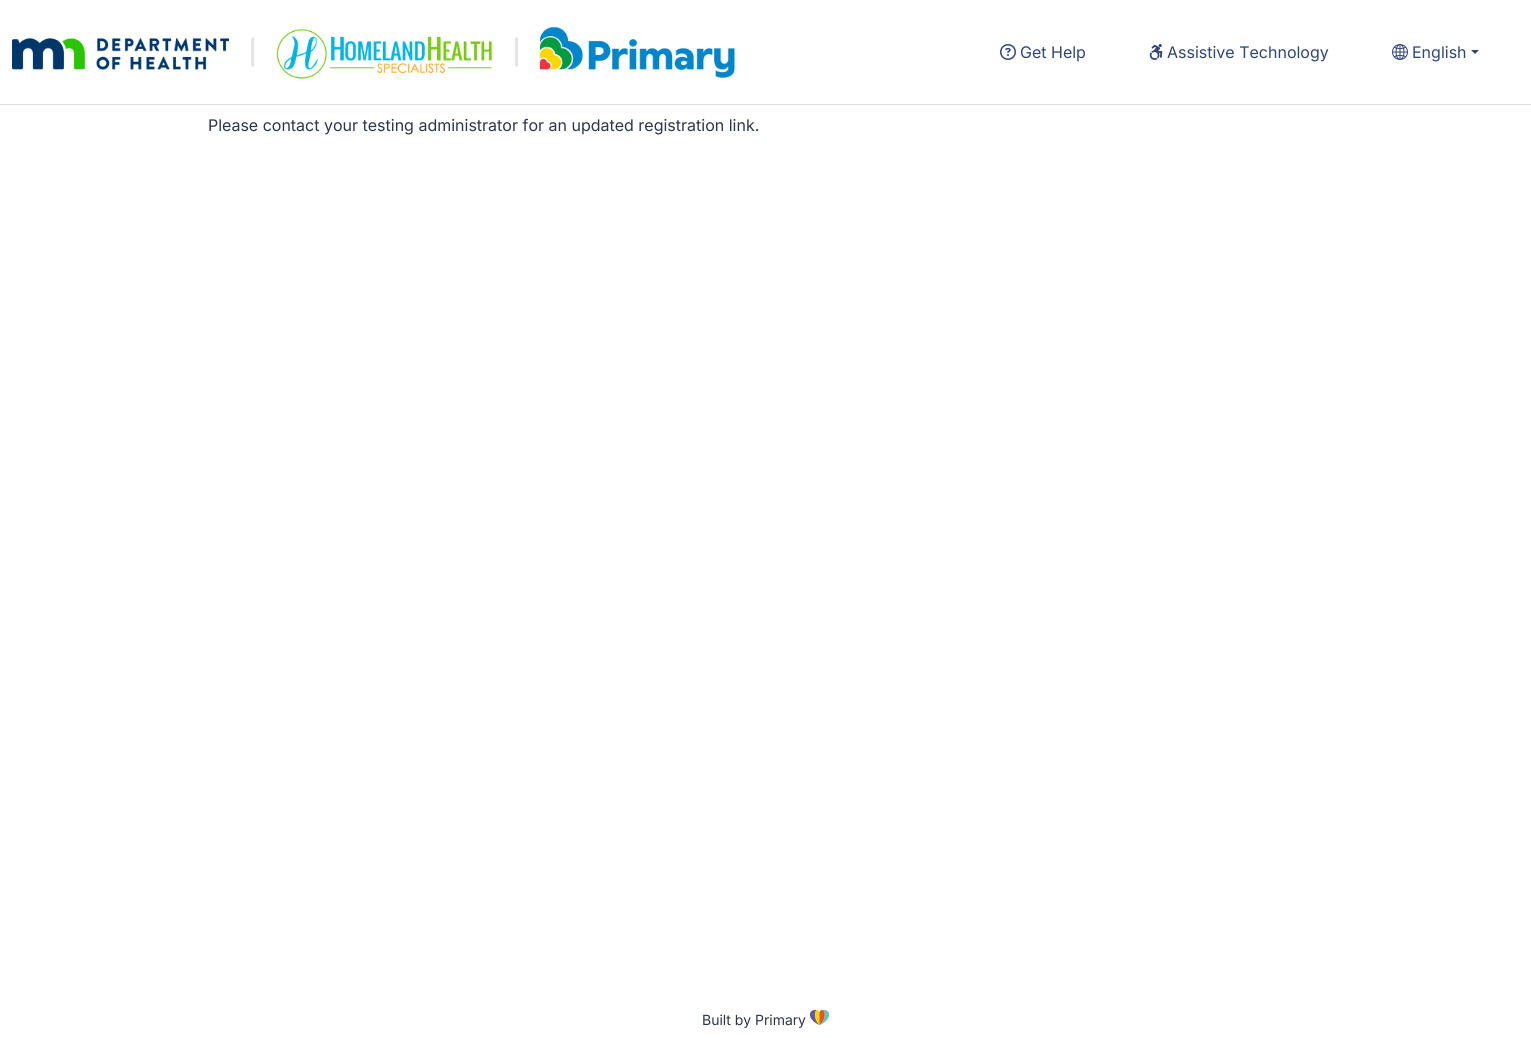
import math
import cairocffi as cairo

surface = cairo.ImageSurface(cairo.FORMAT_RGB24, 1531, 1038)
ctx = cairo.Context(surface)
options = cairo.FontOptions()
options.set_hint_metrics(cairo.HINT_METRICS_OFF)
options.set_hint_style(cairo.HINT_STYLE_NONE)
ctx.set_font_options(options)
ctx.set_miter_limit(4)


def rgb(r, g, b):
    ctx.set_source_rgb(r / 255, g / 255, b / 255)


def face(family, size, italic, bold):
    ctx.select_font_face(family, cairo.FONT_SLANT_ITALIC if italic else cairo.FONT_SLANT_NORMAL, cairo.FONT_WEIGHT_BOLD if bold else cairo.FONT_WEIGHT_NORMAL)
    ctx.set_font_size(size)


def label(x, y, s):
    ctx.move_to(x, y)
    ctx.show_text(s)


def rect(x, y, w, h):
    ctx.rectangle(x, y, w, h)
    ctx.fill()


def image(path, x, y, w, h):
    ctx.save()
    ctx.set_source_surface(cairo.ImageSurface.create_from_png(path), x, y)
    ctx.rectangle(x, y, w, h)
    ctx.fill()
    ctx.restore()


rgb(255, 255, 255)
ctx.paint()
rgb(222, 226, 230)
rect(0, 104, 1531, 1)
image('image0.png', 12, 26, 723, 53)
image('image1.png', 1000, 44, 16, 16)
face('Inter', 16, 0, 0)
rgb(49, 70, 119)
label(1020, 58, 'Get Help')
image('image2.png', 1149, 44, 14, 16)
label(1167, 58, 'Assistive Technology')
image('image3.png', 1392, 44, 16, 16)
label(1412, 58, 'English')
ctx.new_path()
ctx.move_to(1471, 50)
ctx.line_to(1479, 50)
ctx.line_to(1475, 54)
ctx.close_path()
ctx.fill()
rgb(45, 54, 72)
label(208, 131, 'Please contact your testing administrator for an updated registration link.')
face('Inter', 14, 0, 0)
label(702, 1025, 'Built by Primary')
image('image4.png', 810, 1010, 19, 15)
surface.write_to_png('render.png')
